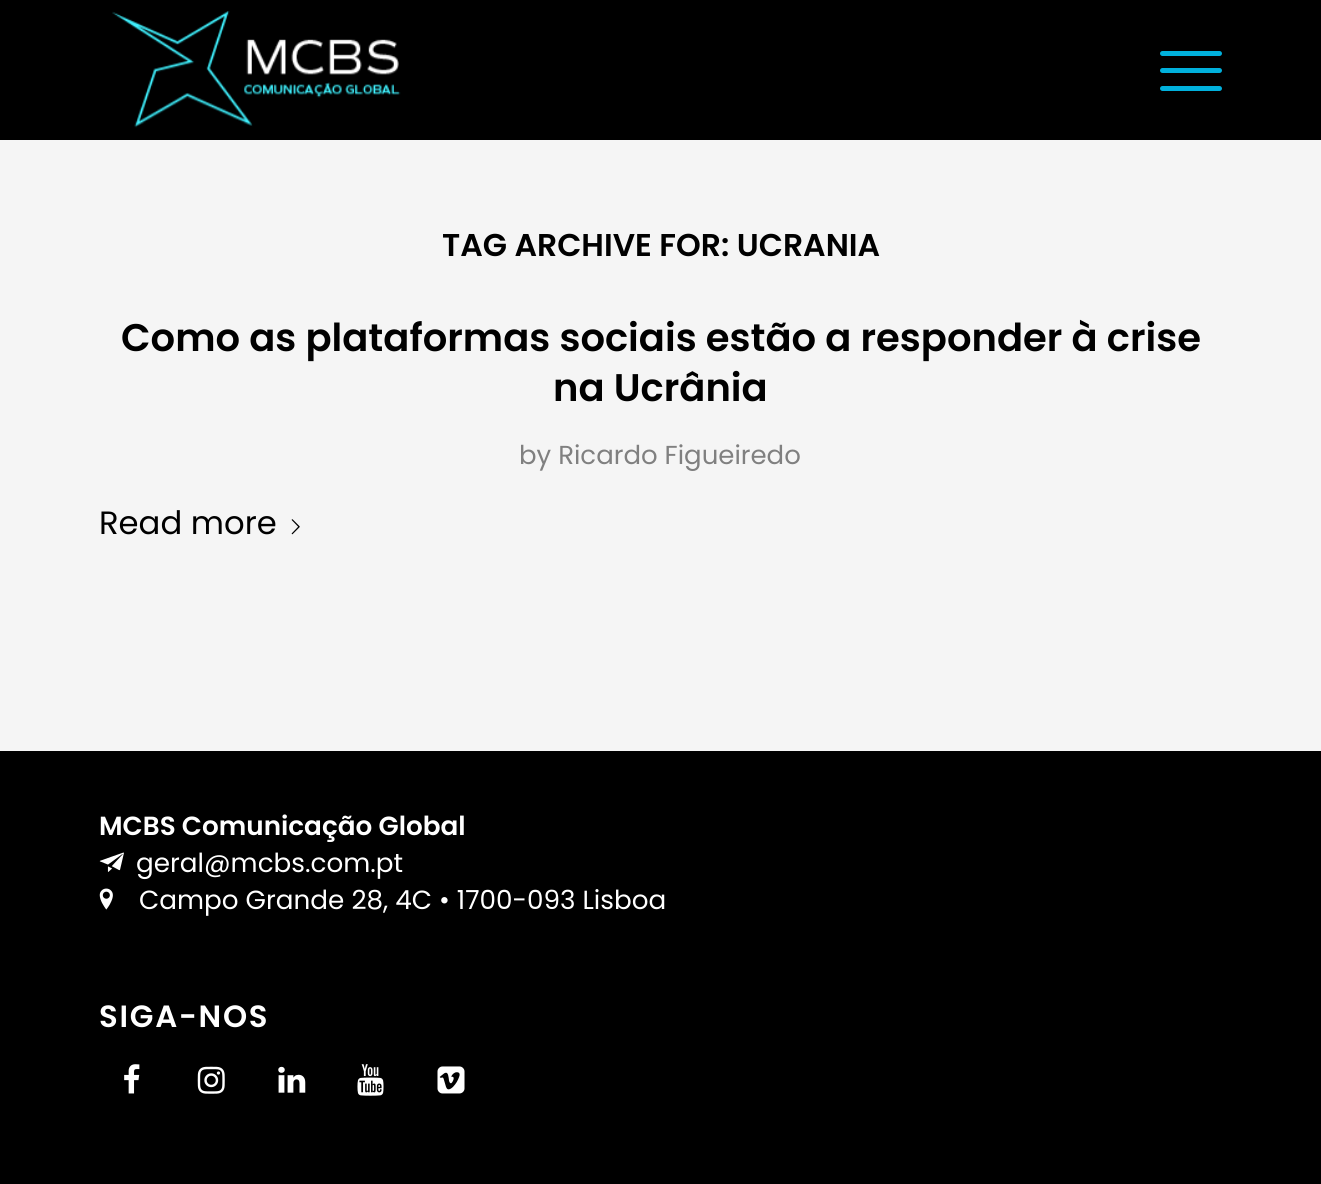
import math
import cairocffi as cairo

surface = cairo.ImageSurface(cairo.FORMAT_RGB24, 1321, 1184)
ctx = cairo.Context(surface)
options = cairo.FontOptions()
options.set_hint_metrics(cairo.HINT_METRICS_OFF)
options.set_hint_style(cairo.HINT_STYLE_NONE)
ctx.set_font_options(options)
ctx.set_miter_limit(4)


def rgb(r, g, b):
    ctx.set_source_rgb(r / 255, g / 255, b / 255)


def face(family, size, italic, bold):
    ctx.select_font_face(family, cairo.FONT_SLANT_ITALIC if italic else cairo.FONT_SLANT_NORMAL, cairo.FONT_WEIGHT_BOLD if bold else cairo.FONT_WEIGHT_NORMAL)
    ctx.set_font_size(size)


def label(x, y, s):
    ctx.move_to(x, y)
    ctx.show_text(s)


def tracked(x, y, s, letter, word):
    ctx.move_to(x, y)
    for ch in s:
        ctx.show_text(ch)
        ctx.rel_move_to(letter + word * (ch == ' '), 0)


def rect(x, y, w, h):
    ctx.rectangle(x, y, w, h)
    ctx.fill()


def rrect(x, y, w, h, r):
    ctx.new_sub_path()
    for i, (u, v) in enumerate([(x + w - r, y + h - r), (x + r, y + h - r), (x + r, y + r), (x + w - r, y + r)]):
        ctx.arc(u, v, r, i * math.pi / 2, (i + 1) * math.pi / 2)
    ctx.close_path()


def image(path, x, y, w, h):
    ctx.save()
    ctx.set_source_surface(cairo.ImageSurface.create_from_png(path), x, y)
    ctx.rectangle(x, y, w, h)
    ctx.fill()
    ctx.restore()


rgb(0, 0, 0)
ctx.paint()
image('image0.png', 112, 11, 289, 117)
rgb(0, 176, 220)
rrect(1160, 68, 62, 5, 2.5)
ctx.fill()
rrect(1160, 51, 62, 5, 2.5)
ctx.fill()
rrect(1160, 86, 62, 5, 2.5)
ctx.fill()
rgb(245, 245, 245)
rect(0, 140, 1321, 611)
face('Poppins SemiBold', 31.5, 0, 0)
rgb(0, 0, 0)
label(442, 256, 'TAG ARCHIVE FOR: UCRANIA')
face('Poppins SemiBold', 38.5, 0, 0)
label(121, 351, 'Como as plataformas sociais estão a responder à crise')
label(553, 401, 'na Ucrânia')
face('Poppins', 26, 0, 0)
rgb(128, 128, 128)
label(519, 464, 'by Ricardo Figueiredo')
face('Poppins', 32.25, 0, 0)
rgb(0, 0, 0)
label(99, 534, 'Read more')
image('image1.png', 291, 519, 9, 16)
face('Poppins SemiBold', 26.25, 0, 0)
rgb(255, 255, 255)
label(99, 835, 'MCBS Comunicação Global')
image('image2.png', 99, 852, 25, 20)
face('Poppins', 26.25, 0, 0)
label(136, 872, 'geral@mcbs.com.pt')
image('image3.png', 99, 888, 14, 22)
label(139, 909, 'Campo Grande 28, 4C • 1700-093 Lisboa')
face('Poppins SemiBold', 30.75, 0, 0)
tracked(99, 1027, 'SIGA-NOS', 1.75, 0)
image('image4.png', 124, 1064, 16, 30)
image('image5.png', 197, 1066, 28, 28)
image('image6.png', 278, 1066, 28, 27)
image('image7.png', 357, 1064, 27, 32)
image('image8.png', 437, 1066, 28, 28)
surface.write_to_png('render.png')
